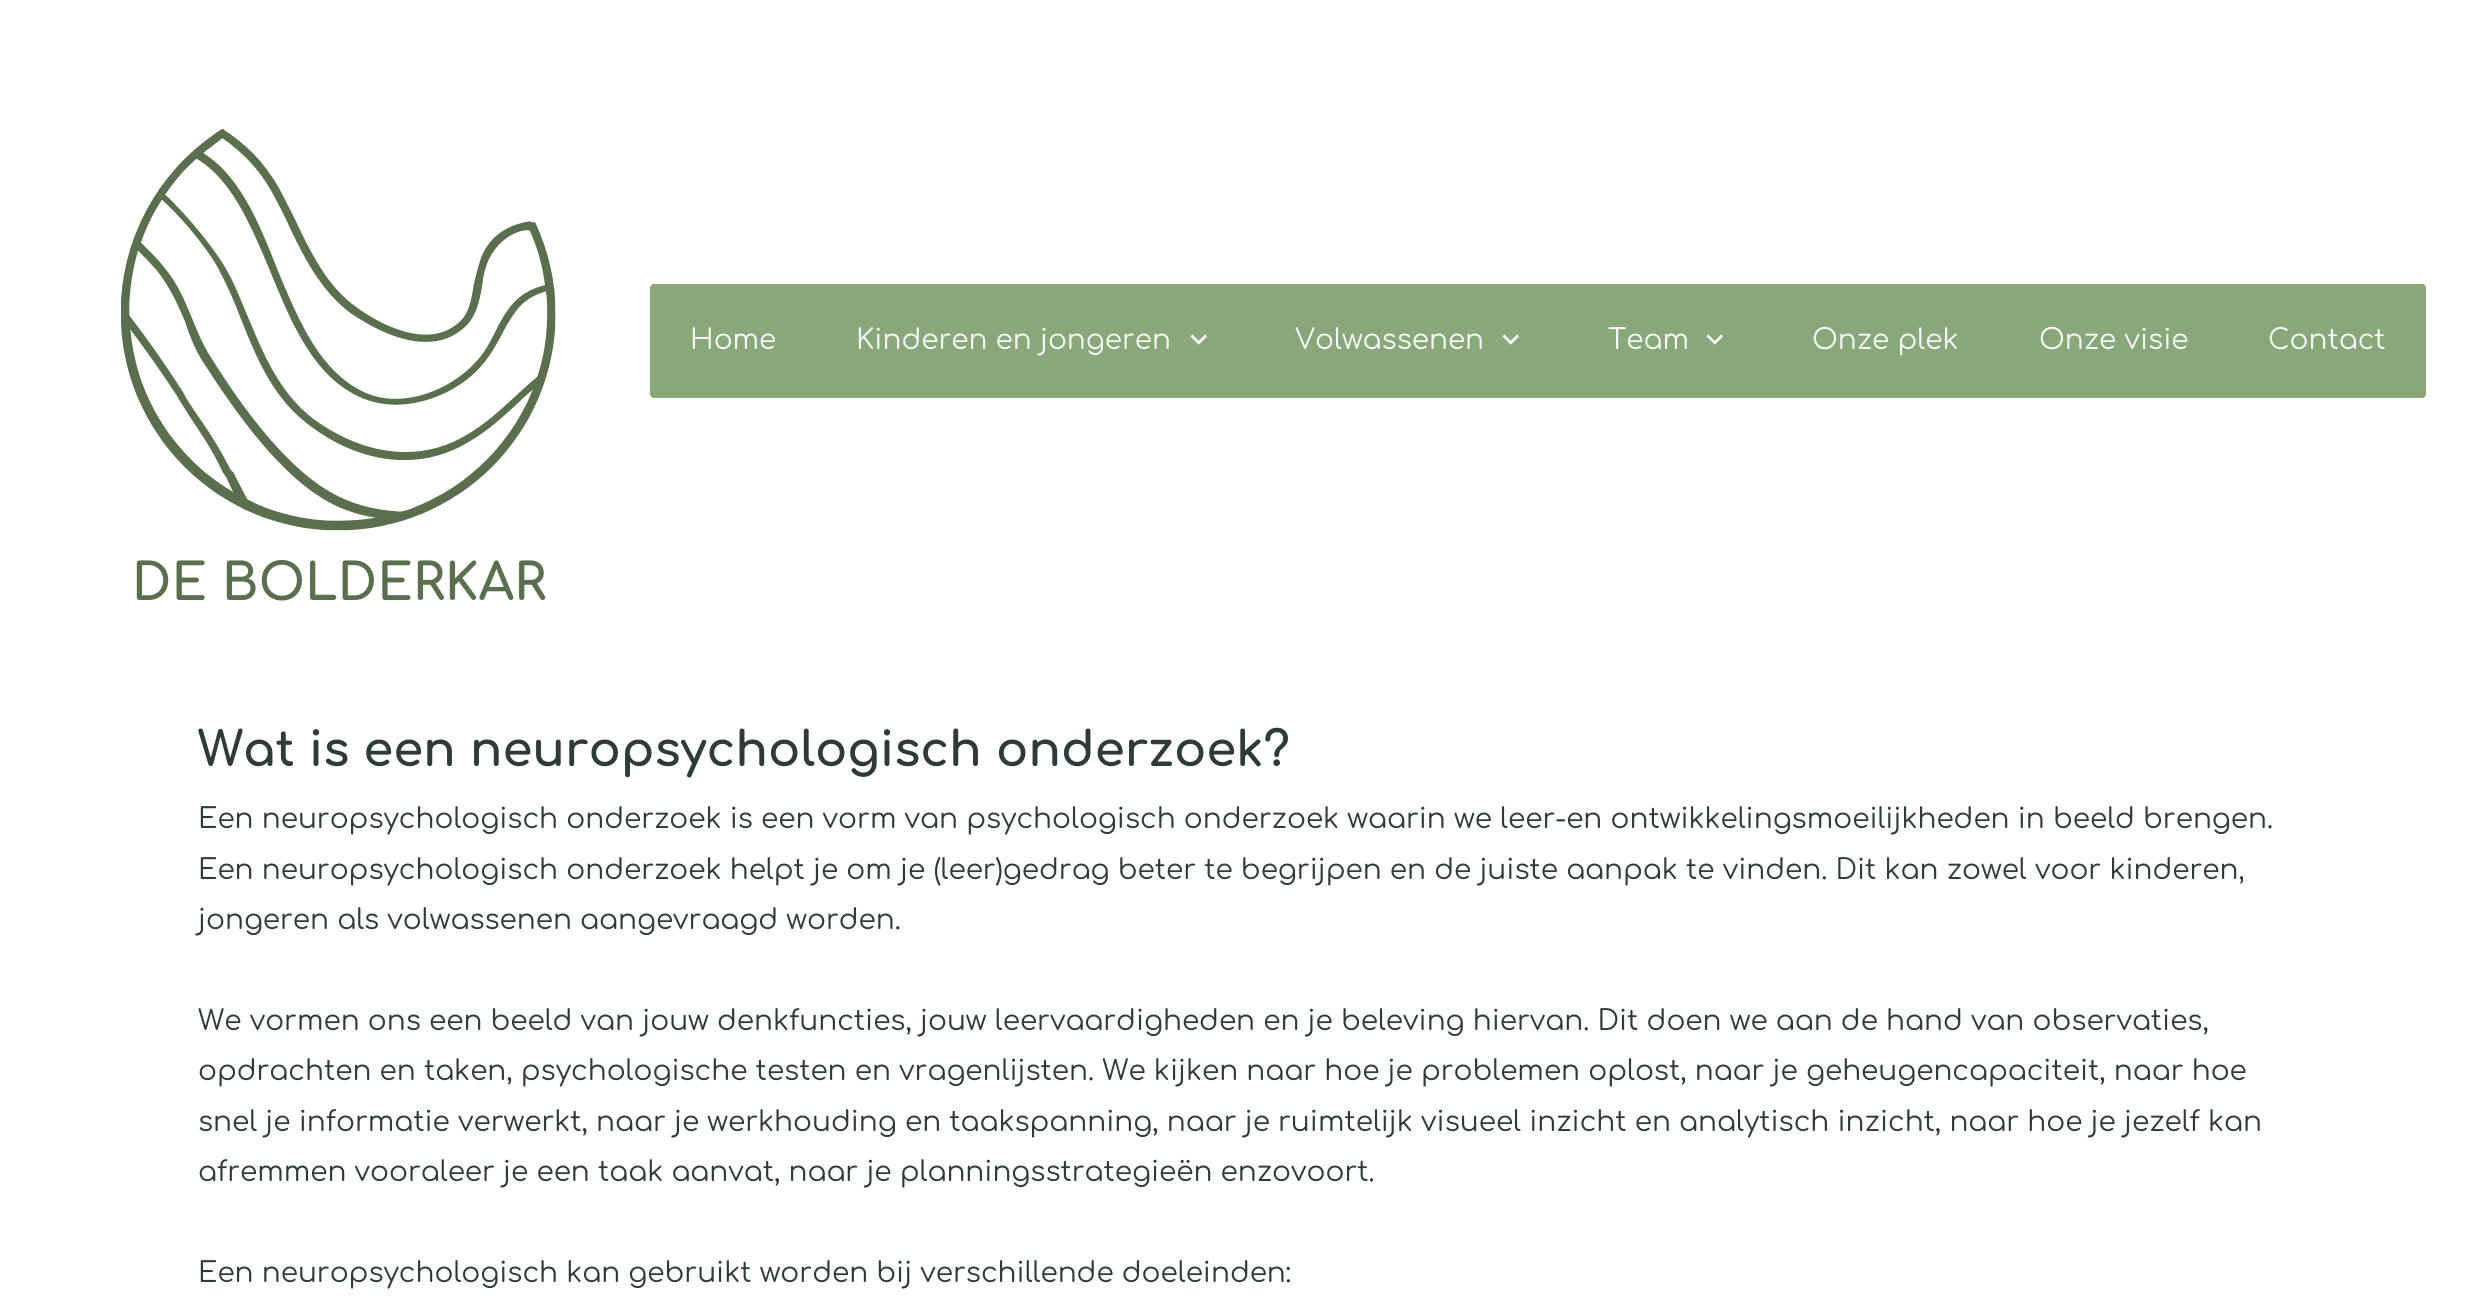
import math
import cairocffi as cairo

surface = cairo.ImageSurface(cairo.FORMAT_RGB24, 2488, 1296)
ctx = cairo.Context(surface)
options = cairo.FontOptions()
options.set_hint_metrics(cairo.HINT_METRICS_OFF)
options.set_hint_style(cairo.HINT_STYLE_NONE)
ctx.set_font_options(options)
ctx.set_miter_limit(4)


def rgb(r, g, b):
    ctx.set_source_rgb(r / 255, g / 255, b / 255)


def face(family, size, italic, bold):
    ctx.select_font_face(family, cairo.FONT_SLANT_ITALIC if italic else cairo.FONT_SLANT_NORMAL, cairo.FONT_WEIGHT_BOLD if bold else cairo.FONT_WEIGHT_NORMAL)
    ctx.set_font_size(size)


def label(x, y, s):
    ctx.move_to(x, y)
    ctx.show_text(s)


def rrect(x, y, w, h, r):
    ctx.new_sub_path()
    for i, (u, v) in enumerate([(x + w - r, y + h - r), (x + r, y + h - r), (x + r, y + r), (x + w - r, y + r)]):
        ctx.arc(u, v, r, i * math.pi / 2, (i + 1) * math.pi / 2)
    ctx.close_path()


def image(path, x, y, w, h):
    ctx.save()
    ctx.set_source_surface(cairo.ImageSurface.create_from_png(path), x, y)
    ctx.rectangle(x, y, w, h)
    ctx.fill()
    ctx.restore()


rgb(255, 255, 255)
ctx.paint()
image('image0.png', 120, 129, 436, 472)
rgb(137, 168, 122)
rrect(650, 284, 1776, 114, 4)
ctx.fill()
face('Comfortaa', 28, 0, 0)
rgb(247, 247, 247)
label(690, 349, 'Home')
label(856, 349, 'Kinderen en jongeren')
image('image1.png', 1190, 334, 18, 11)
label(1295, 349, 'Volwassenen')
image('image1.png', 1502, 334, 18, 11)
label(1608, 349, 'Team')
image('image1.png', 1706, 334, 18, 11)
label(1812, 349, 'Onze plek')
label(2039, 349, 'Onze visie')
label(2268, 349, 'Contact')
face('Comfortaa', 48, 0, 1)
rgb(46, 60, 54)
label(198, 766, 'Wat is een neuropsychologisch onderzoek?')
face('Comfortaa', 28, 0, 0)
label(198, 828, 'Een neuropsychologisch onderzoek is een vorm van psychologisch onderzoek waarin we leer-en ontwikkelingsmoeilijkheden in beeld brengen.')
label(198, 879, 'Een neuropsychologisch onderzoek helpt je om je (leer)gedrag beter te begrijpen en de juiste aanpak te vinden. Dit kan zowel voor kinderen,')
label(198, 929, 'jongeren als volwassenen aangevraagd worden.')
label(198, 1030, 'We vormen ons een beeld van jouw denkfuncties, jouw leervaardigheden en je beleving hiervan. Dit doen we aan de hand van observaties,')
label(198, 1080, 'opdrachten en taken, psychologische testen en vragenlijsten. We kijken naar hoe je problemen oplost, naar je geheugencapaciteit, naar hoe')
label(198, 1131, 'snel je informatie verwerkt, naar je werkhouding en taakspanning, naar je ruimtelijk visueel inzicht en analytisch inzicht, naar hoe je jezelf kan')
label(198, 1181, 'afremmen vooraleer je een taak aanvat, naar je planningsstrategieën enzovoort.')
label(198, 1282, 'Een neuropsychologisch kan gebruikt worden bij verschillende doeleinden:')
surface.write_to_png('render.png')
